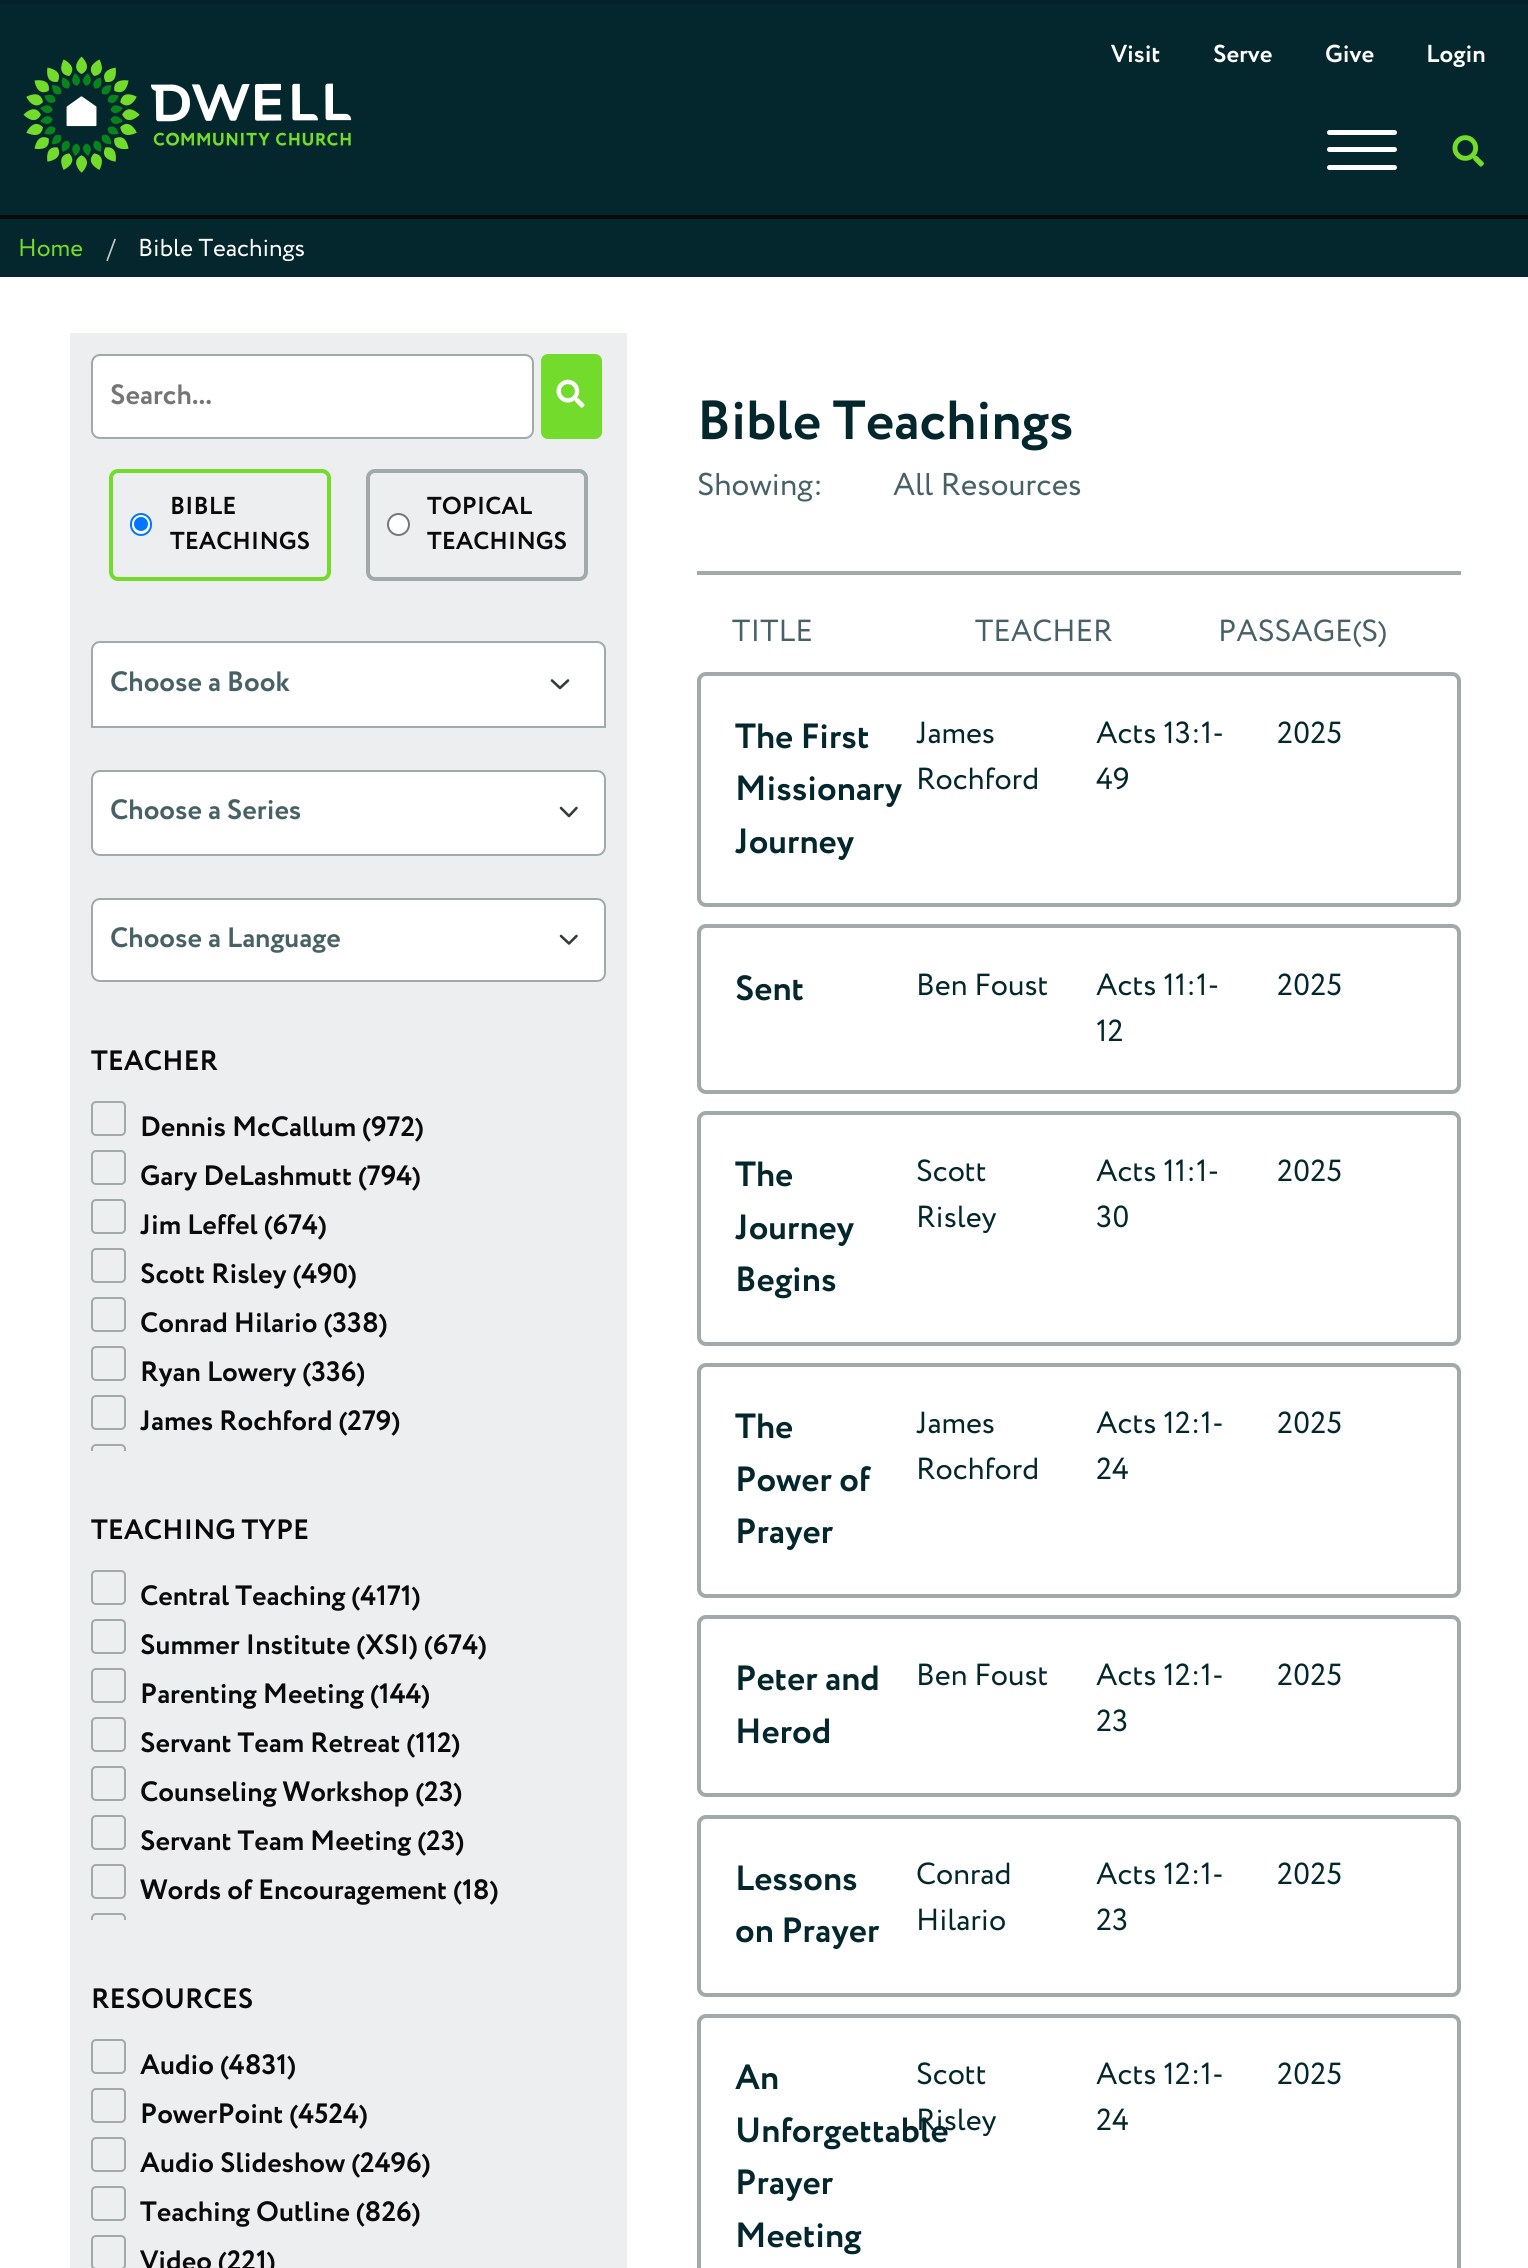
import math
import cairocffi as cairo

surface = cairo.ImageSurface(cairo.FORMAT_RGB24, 1528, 2268)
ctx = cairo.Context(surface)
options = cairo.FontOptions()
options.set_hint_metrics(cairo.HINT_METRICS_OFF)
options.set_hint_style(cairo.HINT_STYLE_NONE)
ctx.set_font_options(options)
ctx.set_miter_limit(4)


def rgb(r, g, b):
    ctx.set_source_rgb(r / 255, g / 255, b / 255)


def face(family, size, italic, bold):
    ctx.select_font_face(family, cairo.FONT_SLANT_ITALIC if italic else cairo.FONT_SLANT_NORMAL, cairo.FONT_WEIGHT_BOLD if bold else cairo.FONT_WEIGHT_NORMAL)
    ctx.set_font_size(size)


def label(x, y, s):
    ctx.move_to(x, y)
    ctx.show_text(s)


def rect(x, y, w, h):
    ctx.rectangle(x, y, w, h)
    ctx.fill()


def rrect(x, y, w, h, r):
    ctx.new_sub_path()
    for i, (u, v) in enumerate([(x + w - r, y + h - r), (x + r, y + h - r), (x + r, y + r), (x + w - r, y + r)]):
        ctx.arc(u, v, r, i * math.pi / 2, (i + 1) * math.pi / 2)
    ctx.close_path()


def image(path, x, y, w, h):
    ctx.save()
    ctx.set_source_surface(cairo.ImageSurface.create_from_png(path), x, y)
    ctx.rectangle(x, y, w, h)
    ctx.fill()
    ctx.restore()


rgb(255, 255, 255)
ctx.paint()
rgb(3, 39, 45)
rect(0, 4, 1528, 273)
rgb(3, 33, 38)
rect(0, 0, 1528, 4)
face('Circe', 24.5, 0, 1)
rgb(255, 255, 255)
label(1111, 62, 'Visit')
label(1213, 62, 'Serve')
label(1325, 62, 'Give')
label(1426, 62, 'Login')
image('image0.png', 23, 56, 329, 117)
rrect(1327, 130, 70, 5, 2.5)
ctx.fill()
rrect(1327, 147, 70, 5, 2.5)
ctx.fill()
rrect(1327, 165, 70, 5, 2.5)
ctx.fill()
image('image1.png', 1452, 135, 32, 32)
rgb(10, 10, 10)
rect(0, 215, 1528, 4)
face('Circe', 24.5, 0, 0)
rgb(114, 219, 43)
label(18, 256, 'Home')
rgb(202, 202, 202)
label(107, 256, '/')
rgb(255, 255, 255)
label(138, 256, 'Bible Teachings')
rgb(237, 238, 239)
rect(70, 333, 557, 1935)
rgb(255, 255, 255)
rrect(92, 355, 441, 83, 8)
ctx.fill_preserve()
rgb(162, 169, 171)
ctx.stroke()
face('Circe', 28, 0, 1)
rgb(117, 117, 117)
label(110, 404, 'Search...')
rgb(114, 219, 43)
rrect(542, 355, 59, 83, 6)
ctx.fill_preserve()
ctx.stroke()
image('image2.png', 556, 379, 29, 29)
rrect(111, 471, 218, 108, 7)
ctx.set_line_width(4)
ctx.stroke()
face('Circe', 24.5, 0, 1)
rgb(10, 10, 10)
label(170, 514, 'BIBLE')
rgb(255, 255, 255)
rrect(131, 514, 20, 21, 10)
ctx.fill_preserve()
rgb(0, 117, 255)
ctx.set_line_width(2)
ctx.stroke()
ctx.arc(141, 524, 7, 0, 2 * math.pi)
ctx.fill()
rgb(10, 10, 10)
label(170, 549, 'TEACHINGS')
rrect(368, 471, 218, 108, 7)
rgb(162, 169, 171)
ctx.set_line_width(4)
ctx.stroke()
rgb(10, 10, 10)
label(427, 514, 'TOPICAL')
rgb(255, 255, 255)
ctx.new_path()
ctx.arc(398.5, 524.5, 10.5, 0, 2 * math.pi)
ctx.fill_preserve()
rgb(118, 118, 118)
ctx.set_line_width(2)
ctx.stroke()
rgb(10, 10, 10)
label(427, 549, 'TEACHINGS')
rgb(255, 255, 255)
ctx.new_path()
ctx.move_to(100, 642)
ctx.line_to(597, 642)
ctx.curve_to(601.5, 642, 605, 645.5, 605, 650)
ctx.line_to(605, 727)
ctx.line_to(92, 727)
ctx.line_to(92, 650)
ctx.curve_to(92, 645.5, 95.5, 642, 100, 642)
ctx.close_path()
ctx.fill_preserve()
rgb(162, 169, 171)
ctx.stroke()
face('Circe', 28, 0, 1)
rgb(71, 97, 102)
label(110, 691, 'Choose a Book')
ctx.new_path()
ctx.move_to(552, 680.5)
ctx.line_to(560, 688)
ctx.line_to(568, 680.5)
rgb(52, 58, 64)
ctx.set_line_width(2.6)
ctx.set_line_cap(cairo.LINE_CAP_ROUND)
ctx.set_line_join(cairo.LINE_JOIN_ROUND)
ctx.stroke()
rgb(255, 255, 255)
rrect(91, 770, 515, 86, 9)
ctx.fill()
ctx.new_path()
ctx.move_to(561, 808)
ctx.line_to(569, 816)
ctx.line_to(576.5, 808)
rgb(52, 58, 64)
ctx.stroke()
rrect(92, 771, 513, 84, 8)
rgb(162, 169, 171)
ctx.set_line_width(2)
ctx.set_line_cap(cairo.LINE_CAP_BUTT)
ctx.set_line_join(cairo.LINE_JOIN_MITER)
ctx.stroke()
rgb(71, 97, 102)
label(110, 819, 'Choose a Series')
rgb(255, 255, 255)
rrect(91, 898, 515, 84, 9)
ctx.fill()
ctx.new_path()
ctx.move_to(561, 936)
ctx.line_to(569, 943.5)
ctx.line_to(576.5, 936)
rgb(52, 58, 64)
ctx.set_line_width(2.6)
ctx.set_line_cap(cairo.LINE_CAP_ROUND)
ctx.set_line_join(cairo.LINE_JOIN_ROUND)
ctx.stroke()
rrect(92, 899, 513, 82, 8)
rgb(162, 169, 171)
ctx.set_line_width(2)
ctx.set_line_cap(cairo.LINE_CAP_BUTT)
ctx.set_line_join(cairo.LINE_JOIN_MITER)
ctx.stroke()
rgb(71, 97, 102)
label(110, 947, 'Choose a Language')
rgb(10, 10, 10)
label(91, 1070, 'TEACHER')
rrect(92, 1102, 33, 33, 4)
rgb(162, 169, 171)
ctx.stroke()
rgb(10, 10, 10)
label(140, 1136, 'Dennis McCallum (972)')
rrect(92, 1151, 33, 33, 4)
rgb(162, 169, 171)
ctx.stroke()
rgb(10, 10, 10)
label(140, 1185, 'Gary DeLashmutt (794)')
rrect(92, 1200, 33, 33, 4)
rgb(162, 169, 171)
ctx.stroke()
rgb(10, 10, 10)
label(140, 1234, 'Jim Leffel (674)')
rrect(92, 1249, 33, 33, 4)
rgb(162, 169, 171)
ctx.stroke()
rgb(10, 10, 10)
label(140, 1283, 'Scott Risley (490)')
rrect(92, 1298, 33, 33, 4)
rgb(162, 169, 171)
ctx.stroke()
rgb(10, 10, 10)
label(140, 1332, 'Conrad Hilario (338)')
rrect(92, 1347, 33, 33, 4)
rgb(162, 169, 171)
ctx.stroke()
rgb(10, 10, 10)
label(140, 1381, 'Ryan Lowery (336)')
rrect(92, 1396, 33, 33, 4)
rgb(162, 169, 171)
ctx.stroke()
rgb(10, 10, 10)
label(140, 1430, 'James Rochford (279)')
ctx.save()
ctx.rectangle(91, 1101, 515, 350)
ctx.clip()
rrect(92, 1445, 33, 33, 4)
rgb(162, 169, 171)
ctx.stroke()
ctx.restore()
label(91, 1539, 'TEACHING TYPE')
rrect(92, 1571, 33, 33, 4)
rgb(162, 169, 171)
ctx.stroke()
rgb(10, 10, 10)
label(140, 1605, 'Central Teaching (4171)')
rrect(92, 1620, 33, 33, 4)
rgb(162, 169, 171)
ctx.stroke()
rgb(10, 10, 10)
label(140, 1654, 'Summer Institute (XSI) (674)')
rrect(92, 1669, 33, 33, 4)
rgb(162, 169, 171)
ctx.stroke()
rgb(10, 10, 10)
label(140, 1703, 'Parenting Meeting (144)')
rrect(92, 1718, 33, 33, 4)
rgb(162, 169, 171)
ctx.stroke()
rgb(10, 10, 10)
label(140, 1752, 'Servant Team Retreat (112)')
rrect(92, 1767, 33, 33, 4)
rgb(162, 169, 171)
ctx.stroke()
rgb(10, 10, 10)
label(140, 1801, 'Counseling Workshop (23)')
rrect(92, 1816, 33, 33, 4)
rgb(162, 169, 171)
ctx.stroke()
rgb(10, 10, 10)
label(140, 1850, 'Servant Team Meeting (23)')
rrect(92, 1865, 33, 33, 4)
rgb(162, 169, 171)
ctx.stroke()
rgb(10, 10, 10)
label(140, 1899, 'Words of Encouragement (18)')
ctx.save()
ctx.rectangle(91, 1570, 515, 350)
ctx.clip()
rrect(92, 1914, 33, 33, 4)
rgb(162, 169, 171)
ctx.stroke()
ctx.restore()
label(91, 2008, 'RESOURCES')
rrect(92, 2040, 33, 33, 4)
rgb(162, 169, 171)
ctx.stroke()
rgb(10, 10, 10)
label(140, 2074, 'Audio (4831)')
rrect(92, 2089, 33, 33, 4)
rgb(162, 169, 171)
ctx.stroke()
rgb(10, 10, 10)
label(140, 2123, 'PowerPoint (4524)')
rrect(92, 2138, 33, 33, 4)
rgb(162, 169, 171)
ctx.stroke()
rgb(10, 10, 10)
label(140, 2172, 'Audio Slideshow (2496)')
rrect(92, 2187, 33, 33, 4)
rgb(162, 169, 171)
ctx.stroke()
rgb(10, 10, 10)
label(140, 2221, 'Teaching Outline (826)')
rrect(92, 2236, 33, 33, 4)
rgb(162, 169, 171)
ctx.stroke()
rgb(10, 10, 10)
label(140, 2270, 'Video (221)')
face('Circe', 55, 0, 1)
rgb(3, 39, 45)
label(697, 439, 'Bible Teachings')
face('Circe', 31.5, 0, 0)
rgb(71, 97, 102)
label(697, 495, 'Showing:')
label(893, 495, 'All Resources')
rgb(162, 169, 171)
rect(697, 571, 764, 4)
face('Circe', 30.5, 0, 0)
rgb(71, 97, 102)
label(732, 641, 'TITLE')
label(975, 641, 'TEACHER')
label(1218, 641, 'PASSAGE(S)')
rrect(699, 674, 760, 231, 7)
rgb(162, 169, 171)
ctx.set_line_width(4)
ctx.stroke()
face('Circe', 35, 0, 1)
rgb(3, 39, 45)
label(735, 748, 'The First')
label(735, 800, 'Missionary')
label(735, 853, 'Journey')
face('Circe', 30.5, 0, 0)
label(916, 743, 'James')
label(916, 789, 'Rochford')
label(1096, 743, 'Acts 13:1-')
label(1096, 789, '49')
label(1277, 743, '2025')
rrect(699, 926, 760, 166, 7)
rgb(162, 169, 171)
ctx.stroke()
face('Circe', 35, 0, 1)
rgb(3, 39, 45)
label(735, 1000, 'Sent')
face('Circe', 30.5, 0, 0)
label(916, 995, 'Ben Foust')
label(1096, 995, 'Acts 11:1-')
label(1096, 1041, '12')
label(1277, 995, '2025')
rrect(699, 1113, 760, 231, 7)
rgb(162, 169, 171)
ctx.stroke()
face('Circe', 35, 0, 1)
rgb(3, 39, 45)
label(735, 1186, 'The')
label(735, 1239, 'Journey')
label(735, 1291, 'Begins')
face('Circe', 30.5, 0, 0)
label(916, 1181, 'Scott')
label(916, 1227, 'Risley')
label(1096, 1181, 'Acts 11:1-')
label(1096, 1227, '30')
label(1277, 1181, '2025')
rrect(699, 1365, 760, 231, 7)
rgb(162, 169, 171)
ctx.stroke()
face('Circe', 35, 0, 1)
rgb(3, 39, 45)
label(735, 1438, 'The')
label(735, 1491, 'Power of')
label(735, 1543, 'Prayer')
face('Circe', 30.5, 0, 0)
label(916, 1433, 'James')
label(916, 1479, 'Rochford')
label(1096, 1433, 'Acts 12:1-')
label(1096, 1479, '24')
label(1277, 1433, '2025')
rrect(699, 1617, 760, 178, 7)
rgb(162, 169, 171)
ctx.stroke()
face('Circe', 35, 0, 1)
rgb(3, 39, 45)
label(735, 1690, 'Peter and')
label(735, 1743, 'Herod')
face('Circe', 30.5, 0, 0)
label(916, 1685, 'Ben Foust')
label(1096, 1685, 'Acts 12:1-')
label(1096, 1731, '23')
label(1277, 1685, '2025')
rrect(699, 1817, 760, 178, 7)
rgb(162, 169, 171)
ctx.stroke()
face('Circe', 35, 0, 1)
rgb(3, 39, 45)
label(735, 1890, 'Lessons')
label(735, 1942, 'on Prayer')
face('Circe', 30.5, 0, 0)
label(916, 1884, 'Conrad')
label(916, 1930, 'Hilario')
label(1096, 1884, 'Acts 12:1-')
label(1096, 1930, '23')
label(1277, 1884, '2025')
rrect(699, 2016, 760, 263, 7)
rgb(162, 169, 171)
ctx.stroke()
face('Circe', 35, 0, 1)
rgb(3, 39, 45)
label(735, 2089, 'An')
label(735, 2142, 'Unforgettable')
label(735, 2194, 'Prayer')
label(735, 2247, 'Meeting')
face('Circe', 30.5, 0, 0)
label(916, 2084, 'Scott')
label(916, 2130, 'Risley')
label(1096, 2084, 'Acts 12:1-')
label(1096, 2130, '24')
label(1277, 2084, '2025')
surface.write_to_png('render.png')
